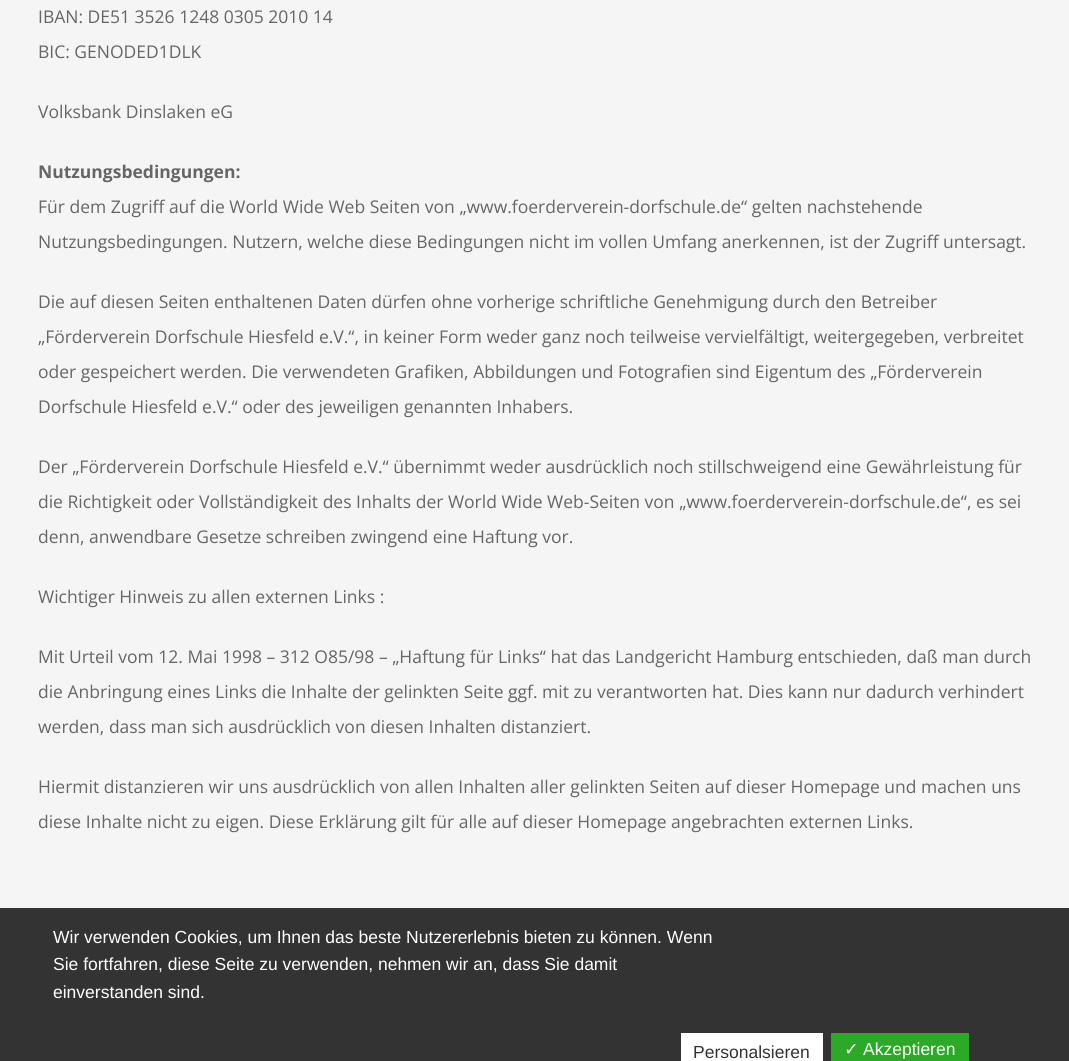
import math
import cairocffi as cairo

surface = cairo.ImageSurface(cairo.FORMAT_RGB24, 1069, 1061)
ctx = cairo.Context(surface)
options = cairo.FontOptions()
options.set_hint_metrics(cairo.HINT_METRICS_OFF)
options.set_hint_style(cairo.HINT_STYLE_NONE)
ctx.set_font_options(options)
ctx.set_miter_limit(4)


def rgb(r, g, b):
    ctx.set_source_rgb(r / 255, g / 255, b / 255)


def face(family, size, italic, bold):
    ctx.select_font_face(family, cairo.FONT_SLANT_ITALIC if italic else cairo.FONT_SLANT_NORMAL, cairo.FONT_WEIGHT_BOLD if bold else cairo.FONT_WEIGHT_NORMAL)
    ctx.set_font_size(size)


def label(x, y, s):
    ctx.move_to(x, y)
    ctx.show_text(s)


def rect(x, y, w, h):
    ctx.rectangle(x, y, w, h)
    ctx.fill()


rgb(245, 245, 245)
ctx.paint()
face('Open Sans', 17.5, 0, 0)
rgb(102, 102, 102)
label(38, 23, 'IBAN: DE51 3526 1248 0305 2010 14')
label(38, 58, 'BIC: GENODED1DLK')
label(38, 118, 'Volksbank Dinslaken eG')
face('Open Sans', 17.5, 0, 1)
label(38, 178, 'Nutzungsbedingungen:')
face('Open Sans', 17.5, 0, 0)
label(38, 213, 'Für dem Zugriff auf die World Wide Web Seiten von „www.foerderverein-dorfschule.de“ gelten nachstehende')
label(38, 248, 'Nutzungsbedingungen. Nutzern, welche diese Bedingungen nicht im vollen Umfang anerkennen, ist der Zugriff untersagt.')
label(38, 308, 'Die auf diesen Seiten enthaltenen Daten dürfen ohne vorherige schriftliche Genehmigung durch den Betreiber')
label(38, 343, '„Förderverein Dorfschule Hiesfeld e.V.“, in keiner Form weder ganz noch teilweise vervielfältigt, weitergegeben, verbreitet')
label(38, 378, 'oder gespeichert werden. Die verwendeten Grafiken, Abbildungen und Fotografien sind Eigentum des „Förderverein')
label(38, 413, 'Dorfschule Hiesfeld e.V.“ oder des jeweiligen genannten Inhabers.')
label(38, 473, 'Der „Förderverein Dorfschule Hiesfeld e.V.“ übernimmt weder ausdrücklich noch stillschweigend eine Gewährleistung für')
label(38, 508, 'die Richtigkeit oder Vollständigkeit des Inhalts der World Wide Web-Seiten von „www.foerderverein-dorfschule.de“, es sei')
label(38, 543, 'denn, anwendbare Gesetze schreiben zwingend eine Haftung vor.')
label(38, 603, 'Wichtiger Hinweis zu allen externen Links :')
label(38, 663, 'Mit Urteil vom 12. Mai 1998 – 312 O85/98 – „Haftung für Links“ hat das Landgericht Hamburg entschieden, daß man durch')
label(38, 698, 'die Anbringung eines Links die Inhalte der gelinkten Seite ggf. mit zu verantworten hat. Dies kann nur dadurch verhindert')
label(38, 733, 'werden, dass man sich ausdrücklich von diesen Inhalten distanziert.')
label(38, 793, 'Hiermit distanzieren wir uns ausdrücklich von allen Inhalten aller gelinkten Seiten auf dieser Homepage und machen uns')
label(38, 828, 'diese Inhalte nicht zu eigen. Diese Erklärung gilt für alle auf dieser Homepage angebrachten externen Links.')
rgb(51, 51, 51)
rect(0, 908, 1069, 153)
face('Liberation Sans', 17.5, 0, 0)
rgb(255, 255, 255)
label(53, 943, 'Wir verwenden Cookies, um Ihnen das beste Nutzererlebnis bieten zu können. Wenn')
label(53, 970, 'Sie fortfahren, diese Seite zu verwenden, nehmen wir an, dass Sie damit')
label(53, 998, 'einverstanden sind.')
rect(681, 1033, 142, 28)
rgb(51, 51, 51)
label(693, 1058, 'Personalsieren')
rgb(44, 170, 39)
rect(831, 1033, 138, 28)
face('DejaVu Sans', 17.5, 0, 0)
rgb(255, 255, 255)
label(844, 1055, '✓')
face('Liberation Sans', 17.5, 0, 0)
label(863, 1055, 'Akzeptieren')
surface.write_to_png('render.png')
